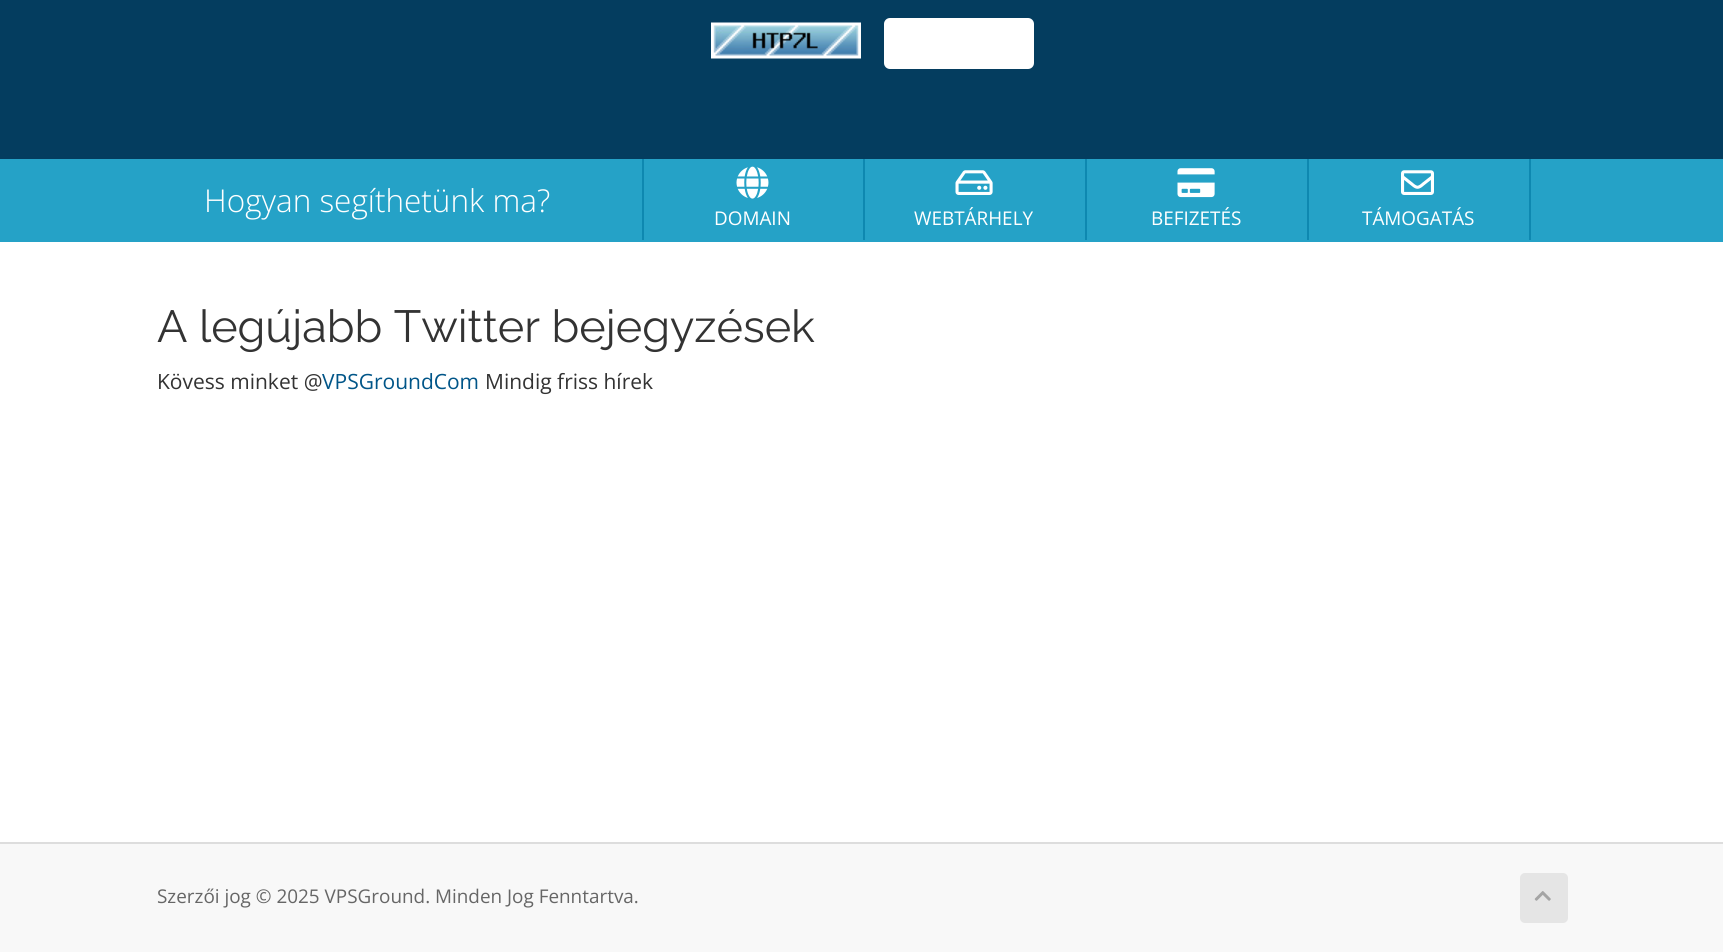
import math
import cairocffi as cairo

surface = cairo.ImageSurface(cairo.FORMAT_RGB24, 1723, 952)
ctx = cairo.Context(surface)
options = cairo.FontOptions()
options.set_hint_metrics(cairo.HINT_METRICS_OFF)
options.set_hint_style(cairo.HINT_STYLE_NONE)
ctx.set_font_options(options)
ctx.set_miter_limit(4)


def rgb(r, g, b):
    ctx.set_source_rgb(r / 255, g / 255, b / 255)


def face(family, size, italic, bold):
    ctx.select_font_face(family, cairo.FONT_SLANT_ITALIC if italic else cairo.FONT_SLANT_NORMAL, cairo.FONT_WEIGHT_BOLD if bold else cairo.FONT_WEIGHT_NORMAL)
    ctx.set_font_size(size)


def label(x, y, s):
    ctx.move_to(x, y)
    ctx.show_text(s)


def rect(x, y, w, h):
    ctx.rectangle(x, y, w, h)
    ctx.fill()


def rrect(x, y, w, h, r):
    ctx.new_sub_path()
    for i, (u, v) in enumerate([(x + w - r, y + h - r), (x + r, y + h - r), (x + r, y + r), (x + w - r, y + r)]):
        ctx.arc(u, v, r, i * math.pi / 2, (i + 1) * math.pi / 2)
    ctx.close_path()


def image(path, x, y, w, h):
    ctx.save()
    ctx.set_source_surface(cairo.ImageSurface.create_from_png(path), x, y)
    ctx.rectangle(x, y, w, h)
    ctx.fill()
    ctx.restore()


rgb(248, 248, 248)
ctx.paint()
rgb(4, 61, 95)
rect(0, 0, 1723, 159)
image('image0.png', 711, 22, 150, 37)
rgb(255, 255, 255)
rrect(884, 18, 150, 51, 6)
ctx.fill()
rgb(37, 162, 199)
rect(0, 159, 1723, 83)
face('Open Sans Light', 31.5, 0, 0)
rgb(255, 255, 255)
label(204, 212, 'Hogyan segíthetünk ma?')
rgb(14, 136, 176)
rect(863, 159, 2, 81)
rect(642, 159, 2, 81)
image('image1.png', 736, 166, 33, 33)
face('Open Sans', 18.9, 0, 0)
rgb(255, 255, 255)
label(714, 225, 'DOMAIN')
rgb(14, 136, 176)
rect(1085, 159, 2, 81)
image('image2.png', 955, 170, 38, 25)
rgb(255, 255, 255)
label(914, 225, 'WEBTÁRHELY')
rgb(14, 136, 176)
rect(1307, 159, 2, 81)
image('image3.png', 1177, 168, 38, 30)
rgb(255, 255, 255)
label(1151, 225, 'BEFIZETÉS')
rgb(14, 136, 176)
rect(1529, 159, 2, 81)
image('image4.png', 1401, 170, 33, 25)
rgb(255, 255, 255)
label(1362, 225, 'TÁMOGATÁS')
rect(0, 242, 1723, 600)
face('Raleway', 45, 0, 0)
rgb(51, 51, 51)
label(157, 342, 'A legújabb Twitter bejegyzések')
face('Open Sans', 21, 0, 0)
label(157, 389, 'Kövess minket @')
rgb(0, 85, 136)
label(322, 389, 'VPSGroundCom')
rgb(51, 51, 51)
label(485, 389, 'Mindig friss hírek')
rgb(221, 221, 221)
rect(0, 842, 1723, 2)
face('Open Sans', 18.9, 0, 0)
rgb(102, 102, 102)
label(157, 903, 'Szerzői jog © 2025 VPSGround. Minden Jog Fenntartva.')
rgb(229, 229, 229)
rrect(1520, 873, 48, 50, 5)
ctx.fill()
image('image5.png', 1534, 891, 17, 10)
surface.write_to_png('render.png')
